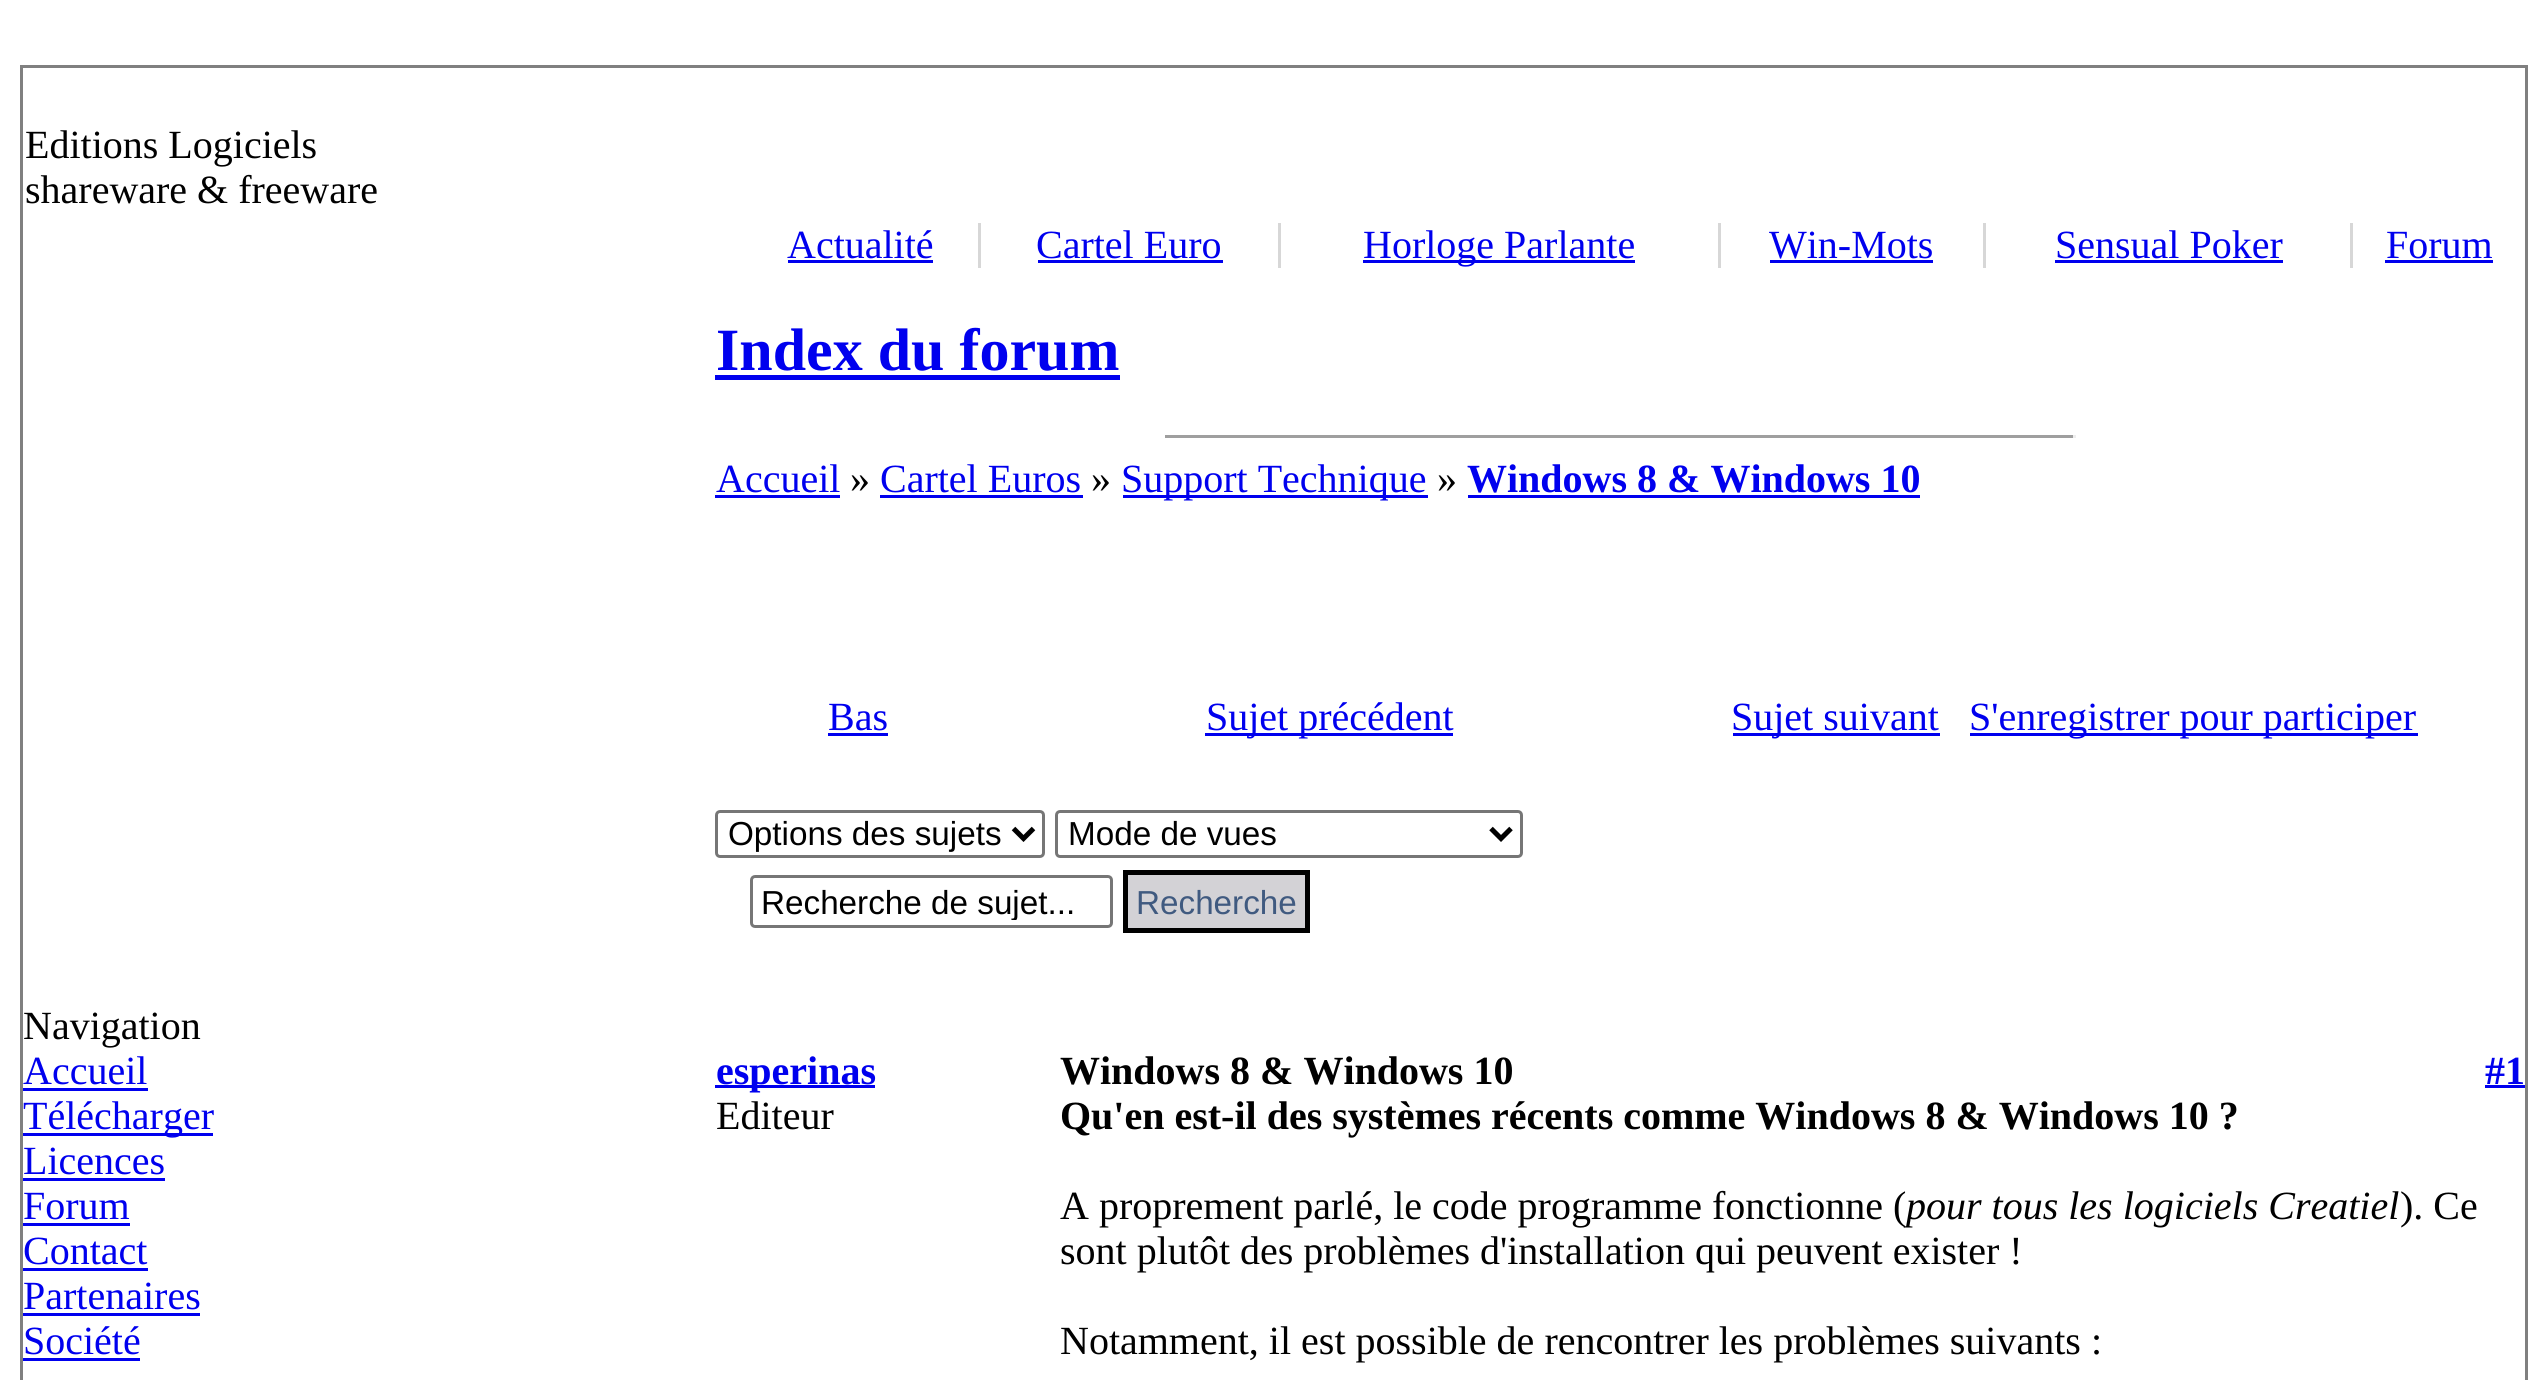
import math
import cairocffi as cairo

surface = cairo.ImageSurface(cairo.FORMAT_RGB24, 2547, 1380)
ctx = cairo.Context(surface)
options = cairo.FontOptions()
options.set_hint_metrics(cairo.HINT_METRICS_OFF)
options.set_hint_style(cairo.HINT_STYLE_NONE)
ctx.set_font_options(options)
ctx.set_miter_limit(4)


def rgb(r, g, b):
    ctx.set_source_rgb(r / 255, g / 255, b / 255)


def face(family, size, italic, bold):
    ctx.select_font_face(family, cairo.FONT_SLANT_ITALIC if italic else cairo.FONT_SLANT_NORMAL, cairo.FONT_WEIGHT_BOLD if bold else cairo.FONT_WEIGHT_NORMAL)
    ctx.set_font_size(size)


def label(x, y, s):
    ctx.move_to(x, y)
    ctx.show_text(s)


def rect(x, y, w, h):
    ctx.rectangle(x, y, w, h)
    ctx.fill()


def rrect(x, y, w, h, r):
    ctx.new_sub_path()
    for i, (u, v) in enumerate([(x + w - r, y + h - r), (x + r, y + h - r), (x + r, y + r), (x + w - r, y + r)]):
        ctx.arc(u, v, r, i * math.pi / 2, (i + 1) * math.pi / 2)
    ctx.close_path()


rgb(255, 255, 255)
ctx.paint()
rgb(128, 128, 128)
rect(20, 65, 2508, 3)
rect(2525, 65, 3, 1315)
rect(20, 65, 3, 1315)
face('Liberation Serif', 40, 0, 0)
rgb(0, 0, 0)
label(25, 158, 'Editions Logiciels')
label(25, 203, 'shareware & freeware')
rgb(0, 0, 238)
label(787, 258, 'Actualité')
rect(788, 260, 145, 3)
rgb(215, 215, 215)
rect(978, 223, 3, 45)
rgb(0, 0, 238)
label(1036, 258, 'Cartel Euro')
rect(1038, 260, 185, 3)
rgb(215, 215, 215)
rect(1278, 223, 3, 45)
rgb(0, 0, 238)
rect(1363, 260, 272, 3)
label(1363, 258, 'Horloge Parlante')
rgb(215, 215, 215)
rect(1718, 223, 3, 45)
rgb(0, 0, 238)
label(1769, 258, 'Win-Mots')
rect(1770, 260, 163, 3)
rgb(215, 215, 215)
rect(1983, 223, 3, 45)
rgb(0, 0, 238)
label(2055, 258, 'Sensual Poker')
rect(2055, 260, 228, 3)
rgb(215, 215, 215)
rect(2350, 223, 3, 45)
rgb(0, 0, 238)
label(2386, 258, 'Forum')
rect(2385, 260, 108, 3)
rgb(0, 0, 0)
label(23, 1039, 'Navigation')
rgb(0, 0, 238)
label(23, 1084, 'Accueil')
rect(23, 1088, 125, 3)
rect(23, 1133, 190, 3)
label(23, 1129, 'Télécharger')
label(23, 1174, 'Licences')
rect(23, 1178, 142, 3)
label(23, 1219, 'Forum')
rect(23, 1223, 107, 3)
label(23, 1264, 'Contact')
rect(23, 1268, 125, 3)
label(23, 1309, 'Partenaires')
rect(23, 1313, 177, 3)
label(23, 1354, 'Société')
rect(23, 1358, 117, 3)
face('Liberation Serif', 60, 0, 1)
label(716, 370, 'Index du forum')
rect(715, 375, 405, 5)
rgb(159, 159, 159)
rect(1165, 435, 910, 3)
rgb(238, 238, 238)
rect(2073, 435, 3, 3)
face('Liberation Serif', 40, 0, 0)
rgb(0, 0, 238)
label(716, 492, 'Accueil')
rect(715, 495, 125, 3)
rgb(0, 0, 0)
label(850, 492, '»')
rgb(0, 0, 238)
label(880, 492, 'Cartel Euros')
rect(880, 495, 203, 3)
rgb(0, 0, 0)
label(1091, 492, '»')
rgb(0, 0, 238)
rect(1123, 495, 305, 3)
label(1121, 492, 'Support Technique')
rgb(0, 0, 0)
label(1437, 492, '»')
face('Liberation Serif', 40, 0, 1)
rgb(0, 0, 238)
label(1467, 492, 'Windows 8 & Windows 10')
rect(1468, 495, 452, 3)
face('Liberation Serif', 40, 0, 0)
label(828, 730, 'Bas')
rect(828, 733, 60, 3)
rect(1205, 733, 248, 3)
label(1206, 730, 'Sujet précédent')
rect(1733, 733, 207, 3)
label(1731, 730, 'Sujet suivant')
rect(1970, 733, 448, 3)
label(1969, 730, 'S\'enregistrer pour participer')
rrect(716.5, 811.5, 327, 45, 3.5)
rgb(118, 118, 118)
ctx.set_line_width(3)
ctx.stroke()
ctx.new_path()
ctx.move_to(1013.5, 828.5)
ctx.line_to(1023.5, 838.5)
ctx.line_to(1033.5, 828.5)
rgb(0, 0, 0)
ctx.set_line_width(5)
ctx.stroke()
face('Liberation Sans', 33.25, 0, 0)
label(728, 845, 'Options des sujets')
rrect(1056.5, 811.5, 465, 45, 3.5)
rgb(118, 118, 118)
ctx.set_line_width(3)
ctx.stroke()
ctx.new_path()
ctx.move_to(1491, 828.5)
ctx.line_to(1501, 838.5)
ctx.line_to(1511, 828.5)
rgb(0, 0, 0)
ctx.set_line_width(5)
ctx.stroke()
label(1068, 845, 'Mode de vues')
rrect(751.5, 876.5, 360, 50, 3.5)
rgb(118, 118, 118)
ctx.set_line_width(3)
ctx.stroke()
ctx.save()
ctx.rectangle(760, 883, 343, 37)
ctx.clip()
rgb(0, 0, 0)
label(761, 914, 'Recherche de sujet...')
ctx.restore()
rgb(211, 210, 214)
ctx.rectangle(1125.5, 872.5, 182, 58)
ctx.fill_preserve()
rgb(0, 0, 0)
ctx.set_line_width(5)
ctx.stroke()
rgb(64, 90, 128)
label(1136, 914, 'Recherche')
rgb(0, 0, 238)
rect(715, 1085, 160, 3)
face('Liberation Serif', 40, 0, 1)
label(716, 1084, 'esperinas')
rgb(0, 0, 0)
label(1060, 1084, 'Windows 8 & Windows 10')
rgb(0, 0, 238)
label(2485, 1084, '#1')
rect(2485, 1085, 40, 3)
face('Liberation Serif', 40, 0, 0)
rgb(0, 0, 0)
label(716, 1129, 'Editeur')
face('Liberation Serif', 40, 0, 1)
label(1060, 1129, 'Qu\'en est-il des systèmes récents comme Windows 8 & Windows 10 ?')
face('Liberation Serif', 40, 0, 0)
label(1060, 1219, 'A proprement parlé, le code programme fonctionne (')
face('Liberation Serif', 40, 1, 0)
label(1906, 1219, 'pour tous les logiciels Creatiel')
face('Liberation Serif', 40, 0, 0)
label(2400, 1219, '). Ce')
label(1060, 1264, 'sont plutôt des problèmes d\'installation qui peuvent exister !')
label(1060, 1354, 'Notamment, il est possible de rencontrer les problèmes suivants :')
surface.write_to_png('render.png')
